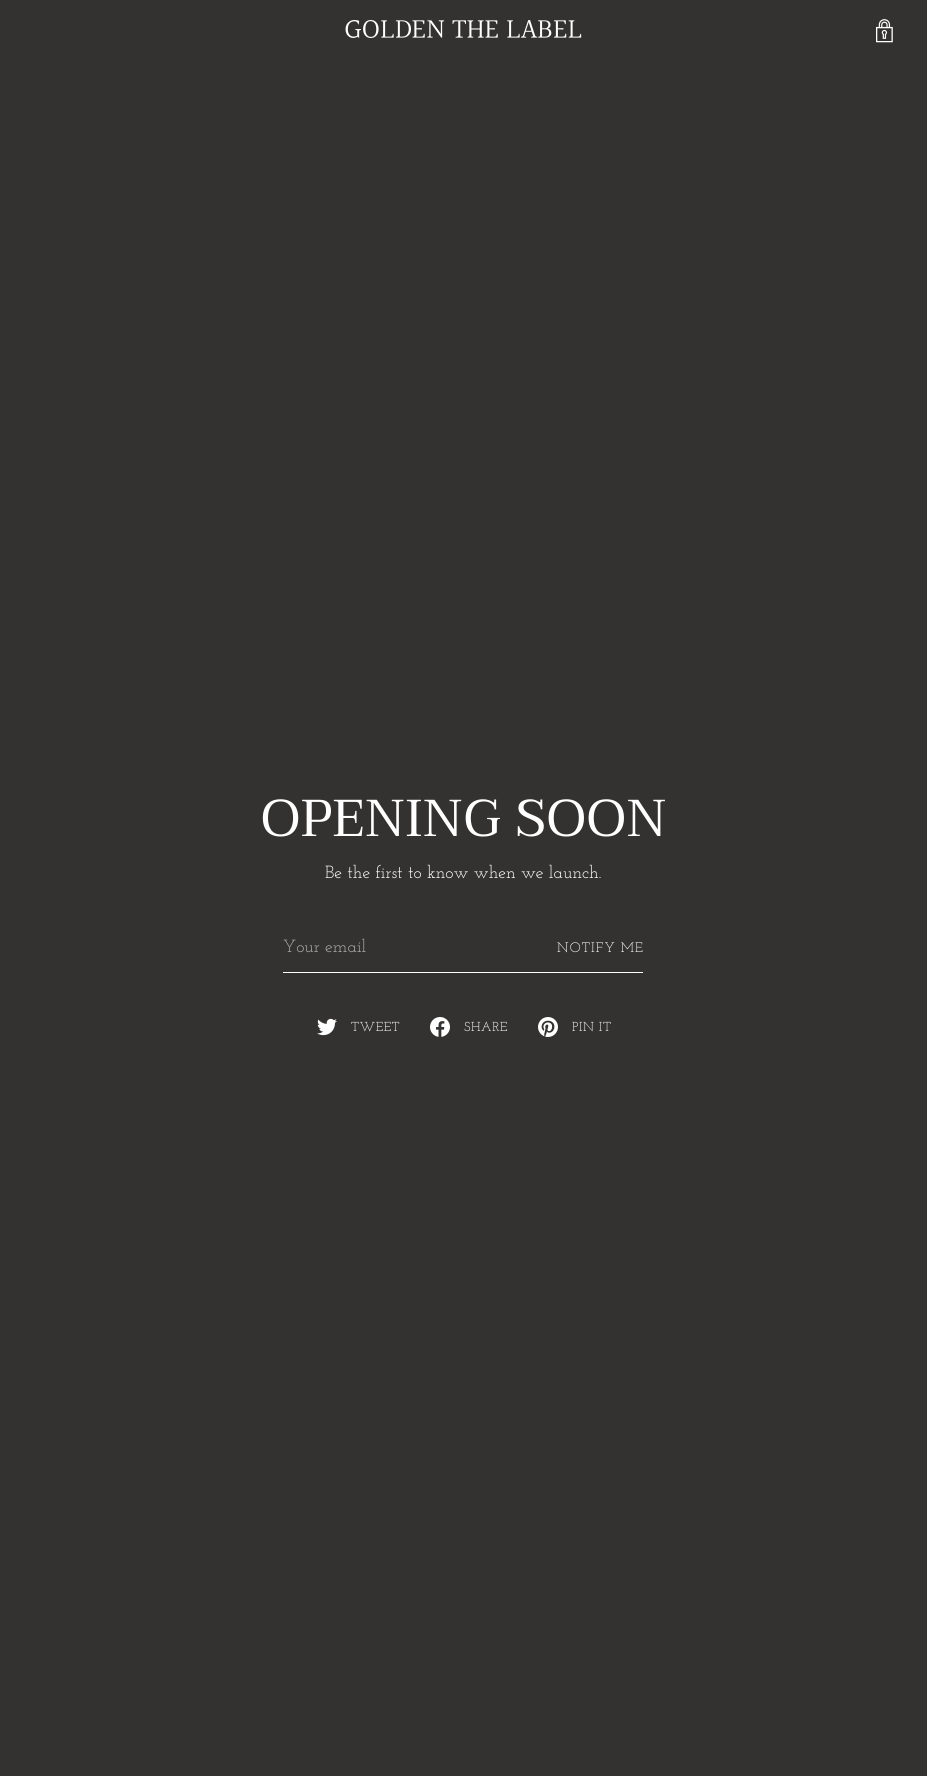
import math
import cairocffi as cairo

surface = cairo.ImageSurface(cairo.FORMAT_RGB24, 927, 1776)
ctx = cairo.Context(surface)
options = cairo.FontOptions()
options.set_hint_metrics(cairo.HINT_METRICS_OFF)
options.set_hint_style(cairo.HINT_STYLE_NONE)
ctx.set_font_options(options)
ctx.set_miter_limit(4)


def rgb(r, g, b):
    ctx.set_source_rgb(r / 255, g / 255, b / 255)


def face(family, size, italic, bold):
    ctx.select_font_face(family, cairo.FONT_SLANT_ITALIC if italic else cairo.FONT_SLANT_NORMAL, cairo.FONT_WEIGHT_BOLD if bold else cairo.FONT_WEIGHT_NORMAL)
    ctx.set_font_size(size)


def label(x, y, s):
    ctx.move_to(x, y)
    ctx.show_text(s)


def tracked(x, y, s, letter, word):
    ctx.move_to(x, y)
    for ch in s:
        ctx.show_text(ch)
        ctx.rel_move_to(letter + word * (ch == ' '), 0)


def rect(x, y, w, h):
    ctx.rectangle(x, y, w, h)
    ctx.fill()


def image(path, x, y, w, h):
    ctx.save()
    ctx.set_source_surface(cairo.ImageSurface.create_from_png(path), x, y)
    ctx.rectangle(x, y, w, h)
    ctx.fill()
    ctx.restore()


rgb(51, 50, 49)
ctx.paint()
face('Halant', 28.25, 0, 0)
rgb(255, 255, 255)
label(344, 39, 'GOLDEN THE LABEL')
image('image0.png', 876, 19, 17, 24)
face('Taviraj', 51.75, 0, 0)
tracked(261, 836, 'OPENING SOON', 1, 0)
face('Josefin Slab', 17.6, 0, 0)
label(325, 878, 'Be the first to know when we launch.')
rect(283, 972, 360, 1)
rgb(173, 173, 173)
label(283, 952, 'Your email')
face('Josefin Slab', 13.75, 0, 0)
rgb(255, 255, 255)
tracked(557, 952, 'NOTIFY ME', 1, 0)
image('image1.png', 317, 1018, 20, 18)
face('Josefin Slab', 13, 0, 0)
tracked(351, 1031, 'TWEET', 0.5, 0)
image('image2.png', 430, 1017, 20, 20)
tracked(464, 1031, 'SHARE', 0.5, 0)
image('image3.png', 538, 1017, 20, 20)
tracked(572, 1031, 'PIN IT', 0.5, 0)
surface.write_to_png('render.png')
